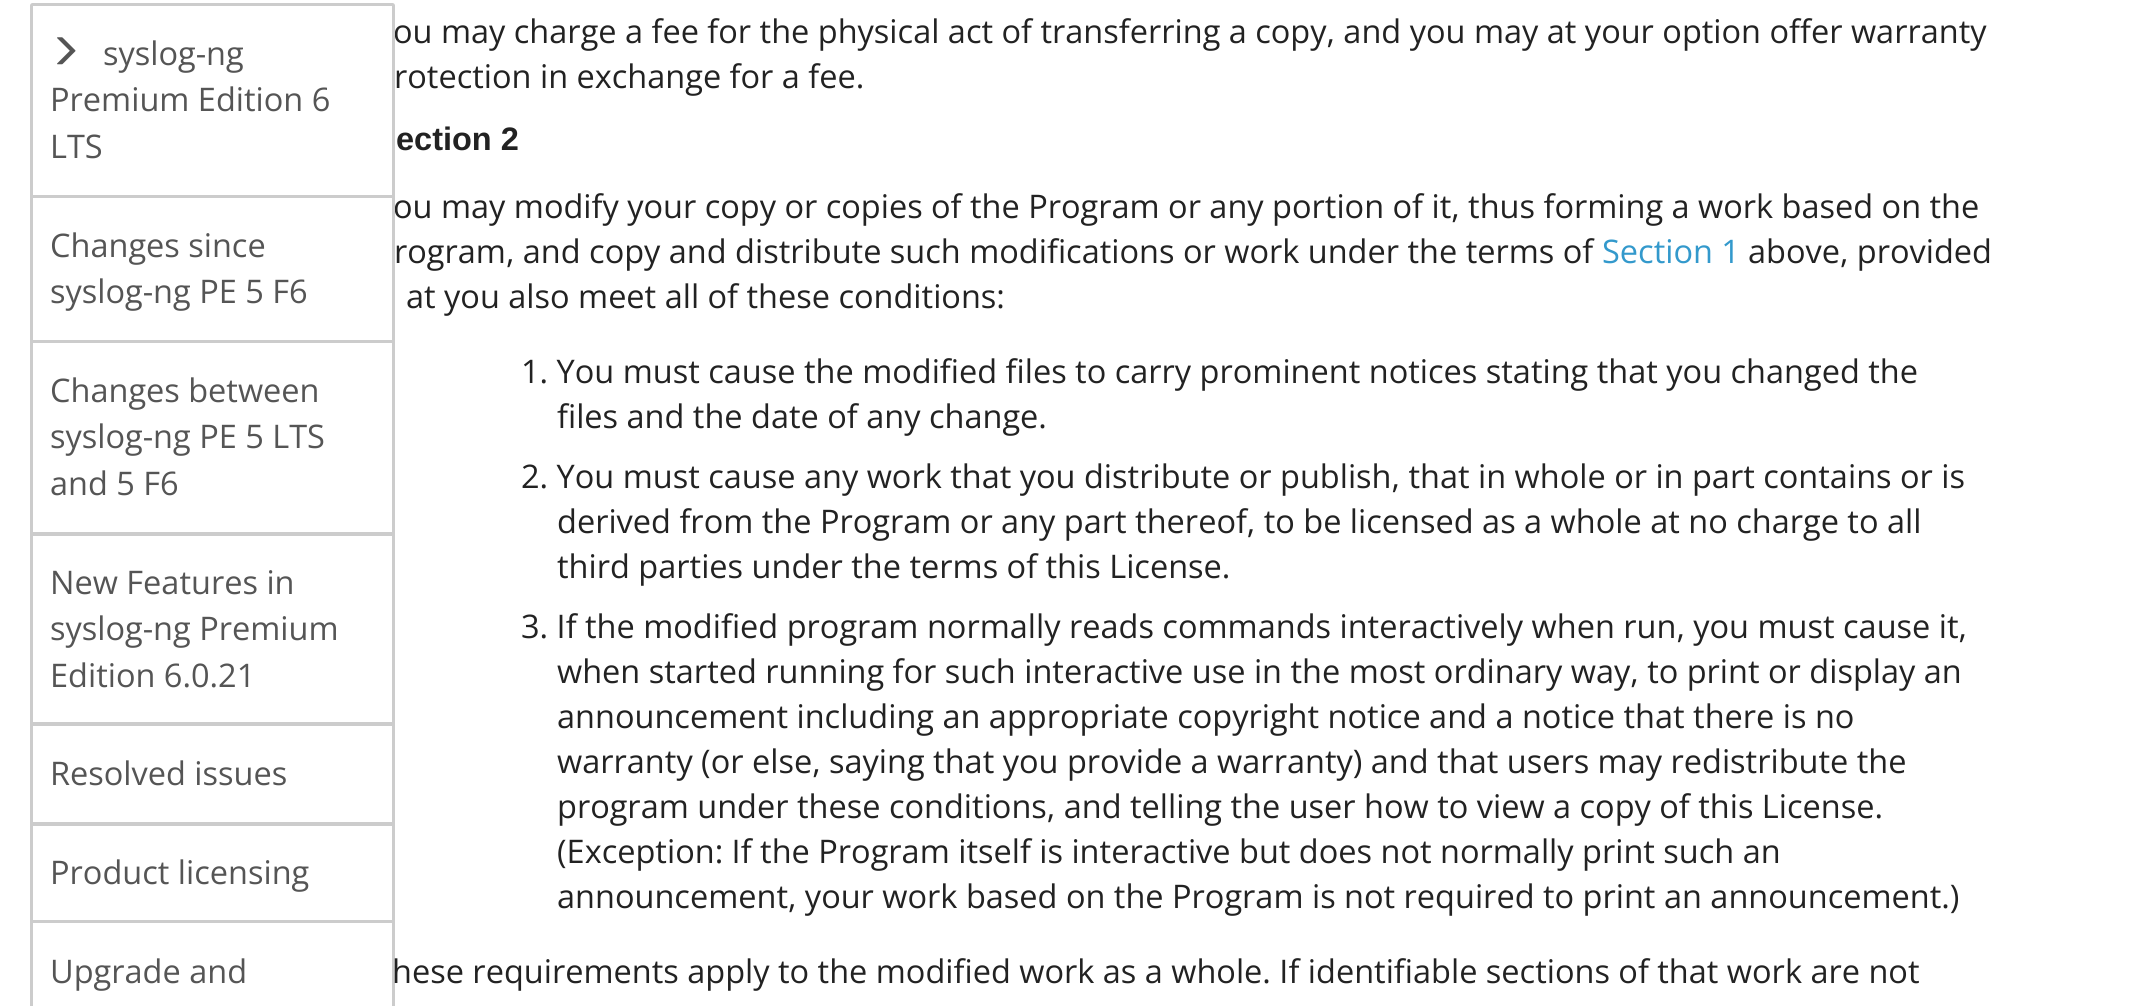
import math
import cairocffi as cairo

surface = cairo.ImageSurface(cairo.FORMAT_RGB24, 2138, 1006)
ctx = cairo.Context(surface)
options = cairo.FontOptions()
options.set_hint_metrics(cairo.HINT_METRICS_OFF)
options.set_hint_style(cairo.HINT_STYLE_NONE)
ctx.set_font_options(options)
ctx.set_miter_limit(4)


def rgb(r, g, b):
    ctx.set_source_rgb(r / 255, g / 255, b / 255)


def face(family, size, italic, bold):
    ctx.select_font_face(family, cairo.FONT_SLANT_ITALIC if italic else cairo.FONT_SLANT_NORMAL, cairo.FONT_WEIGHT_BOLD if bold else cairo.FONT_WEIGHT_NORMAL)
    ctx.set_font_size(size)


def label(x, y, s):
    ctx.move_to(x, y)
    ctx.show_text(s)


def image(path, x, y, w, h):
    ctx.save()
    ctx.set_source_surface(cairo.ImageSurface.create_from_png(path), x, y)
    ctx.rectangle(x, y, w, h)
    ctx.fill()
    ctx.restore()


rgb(255, 255, 255)
ctx.paint()
face('Open Sans', 32.5, 0, 0)
rgb(34, 34, 34)
label(393, 43, 'ou may charge a fee for the physical act of transferring a copy, and you may at your option offer warranty')
label(393, 218, 'ou may modify your copy or copies of the Program or any portion of it, thus forming a work based on the')
rgb(255, 255, 255)
ctx.new_path()
ctx.move_to(32.5, 4.5)
ctx.line_to(392.5, 4.5)
ctx.curve_to(393, 4.5, 393.5, 5, 393.5, 5.5)
ctx.line_to(393.5, 196.5)
ctx.line_to(31.5, 196.5)
ctx.line_to(31.5, 5.5)
ctx.curve_to(31.5, 5, 32, 4.5, 32.5, 4.5)
ctx.close_path()
ctx.fill_preserve()
rgb(204, 204, 204)
ctx.set_line_width(3)
ctx.stroke()
image('image0.png', 57, 37, 19, 28)
rgb(85, 85, 85)
label(103, 65, 'syslog-ng')
label(50, 111, 'Premium Edition 6')
label(50, 158, 'LTS')
ctx.rectangle(31.5, 196.5, 362, 145)
rgb(204, 204, 204)
ctx.stroke()
rgb(85, 85, 85)
label(50, 257, 'Changes since')
label(50, 303, 'syslog-ng PE 5 F6')
ctx.rectangle(31.5, 341.5, 362, 192)
rgb(204, 204, 204)
ctx.stroke()
rgb(85, 85, 85)
label(50, 402, 'Changes between')
label(50, 448, 'syslog-ng PE 5 LTS')
label(50, 495, 'and 5 F6')
ctx.rectangle(31.5, 534.5, 362, 189)
rgb(204, 204, 204)
ctx.stroke()
rgb(85, 85, 85)
label(50, 594, 'New Features in')
label(50, 640, 'syslog-ng Premium')
label(50, 687, 'Edition 6.0.21')
ctx.rectangle(31.5, 724.5, 362, 99)
rgb(204, 204, 204)
ctx.stroke()
rgb(85, 85, 85)
label(50, 785, 'Resolved issues')
ctx.rectangle(31.5, 824.5, 362, 97)
rgb(204, 204, 204)
ctx.stroke()
rgb(85, 85, 85)
label(50, 884, 'Product licensing')
ctx.rectangle(31.5, 921.5, 362, 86)
rgb(204, 204, 204)
ctx.stroke()
rgb(85, 85, 85)
label(50, 983, 'Upgrade and')
rgb(34, 34, 34)
label(394, 88, 'rotection in exchange for a fee.')
face('Liberation Sans', 32.5, 0, 1)
label(396, 150, 'ection 2')
face('Open Sans', 32.5, 0, 0)
label(394, 263, 'rogram, and copy and distribute such modifications or work under the terms of')
rgb(51, 153, 204)
label(1602, 263, 'Section 1')
rgb(34, 34, 34)
label(1748, 263, 'above, provided')
label(406, 308, 'at you also meet all of these conditions:')
label(521, 383, '1. You must cause the modified files to carry prominent notices stating that you changed the')
label(557, 428, 'files and the date of any change.')
label(521, 488, '2. You must cause any work that you distribute or publish, that in whole or in part contains or is')
label(557, 533, 'derived from the Program or any part thereof, to be licensed as a whole at no charge to all')
label(557, 578, 'third parties under the terms of this License.')
label(521, 638, '3. If the modified program normally reads commands interactively when run, you must cause it,')
label(557, 683, 'when started running for such interactive use in the most ordinary way, to print or display an')
label(557, 728, 'announcement including an appropriate copyright notice and a notice that there is no')
label(557, 773, 'warranty (or else, saying that you provide a warranty) and that users may redistribute the')
label(557, 818, 'program under these conditions, and telling the user how to view a copy of this License.')
label(557, 863, '(Exception: If the Program itself is interactive but does not normally print such an')
label(557, 908, 'announcement, your work based on the Program is not required to print an announcement.)')
label(392, 983, 'hese requirements apply to the modified work as a whole. If identifiable sections of that work are not')
surface.write_to_png('render.png')
